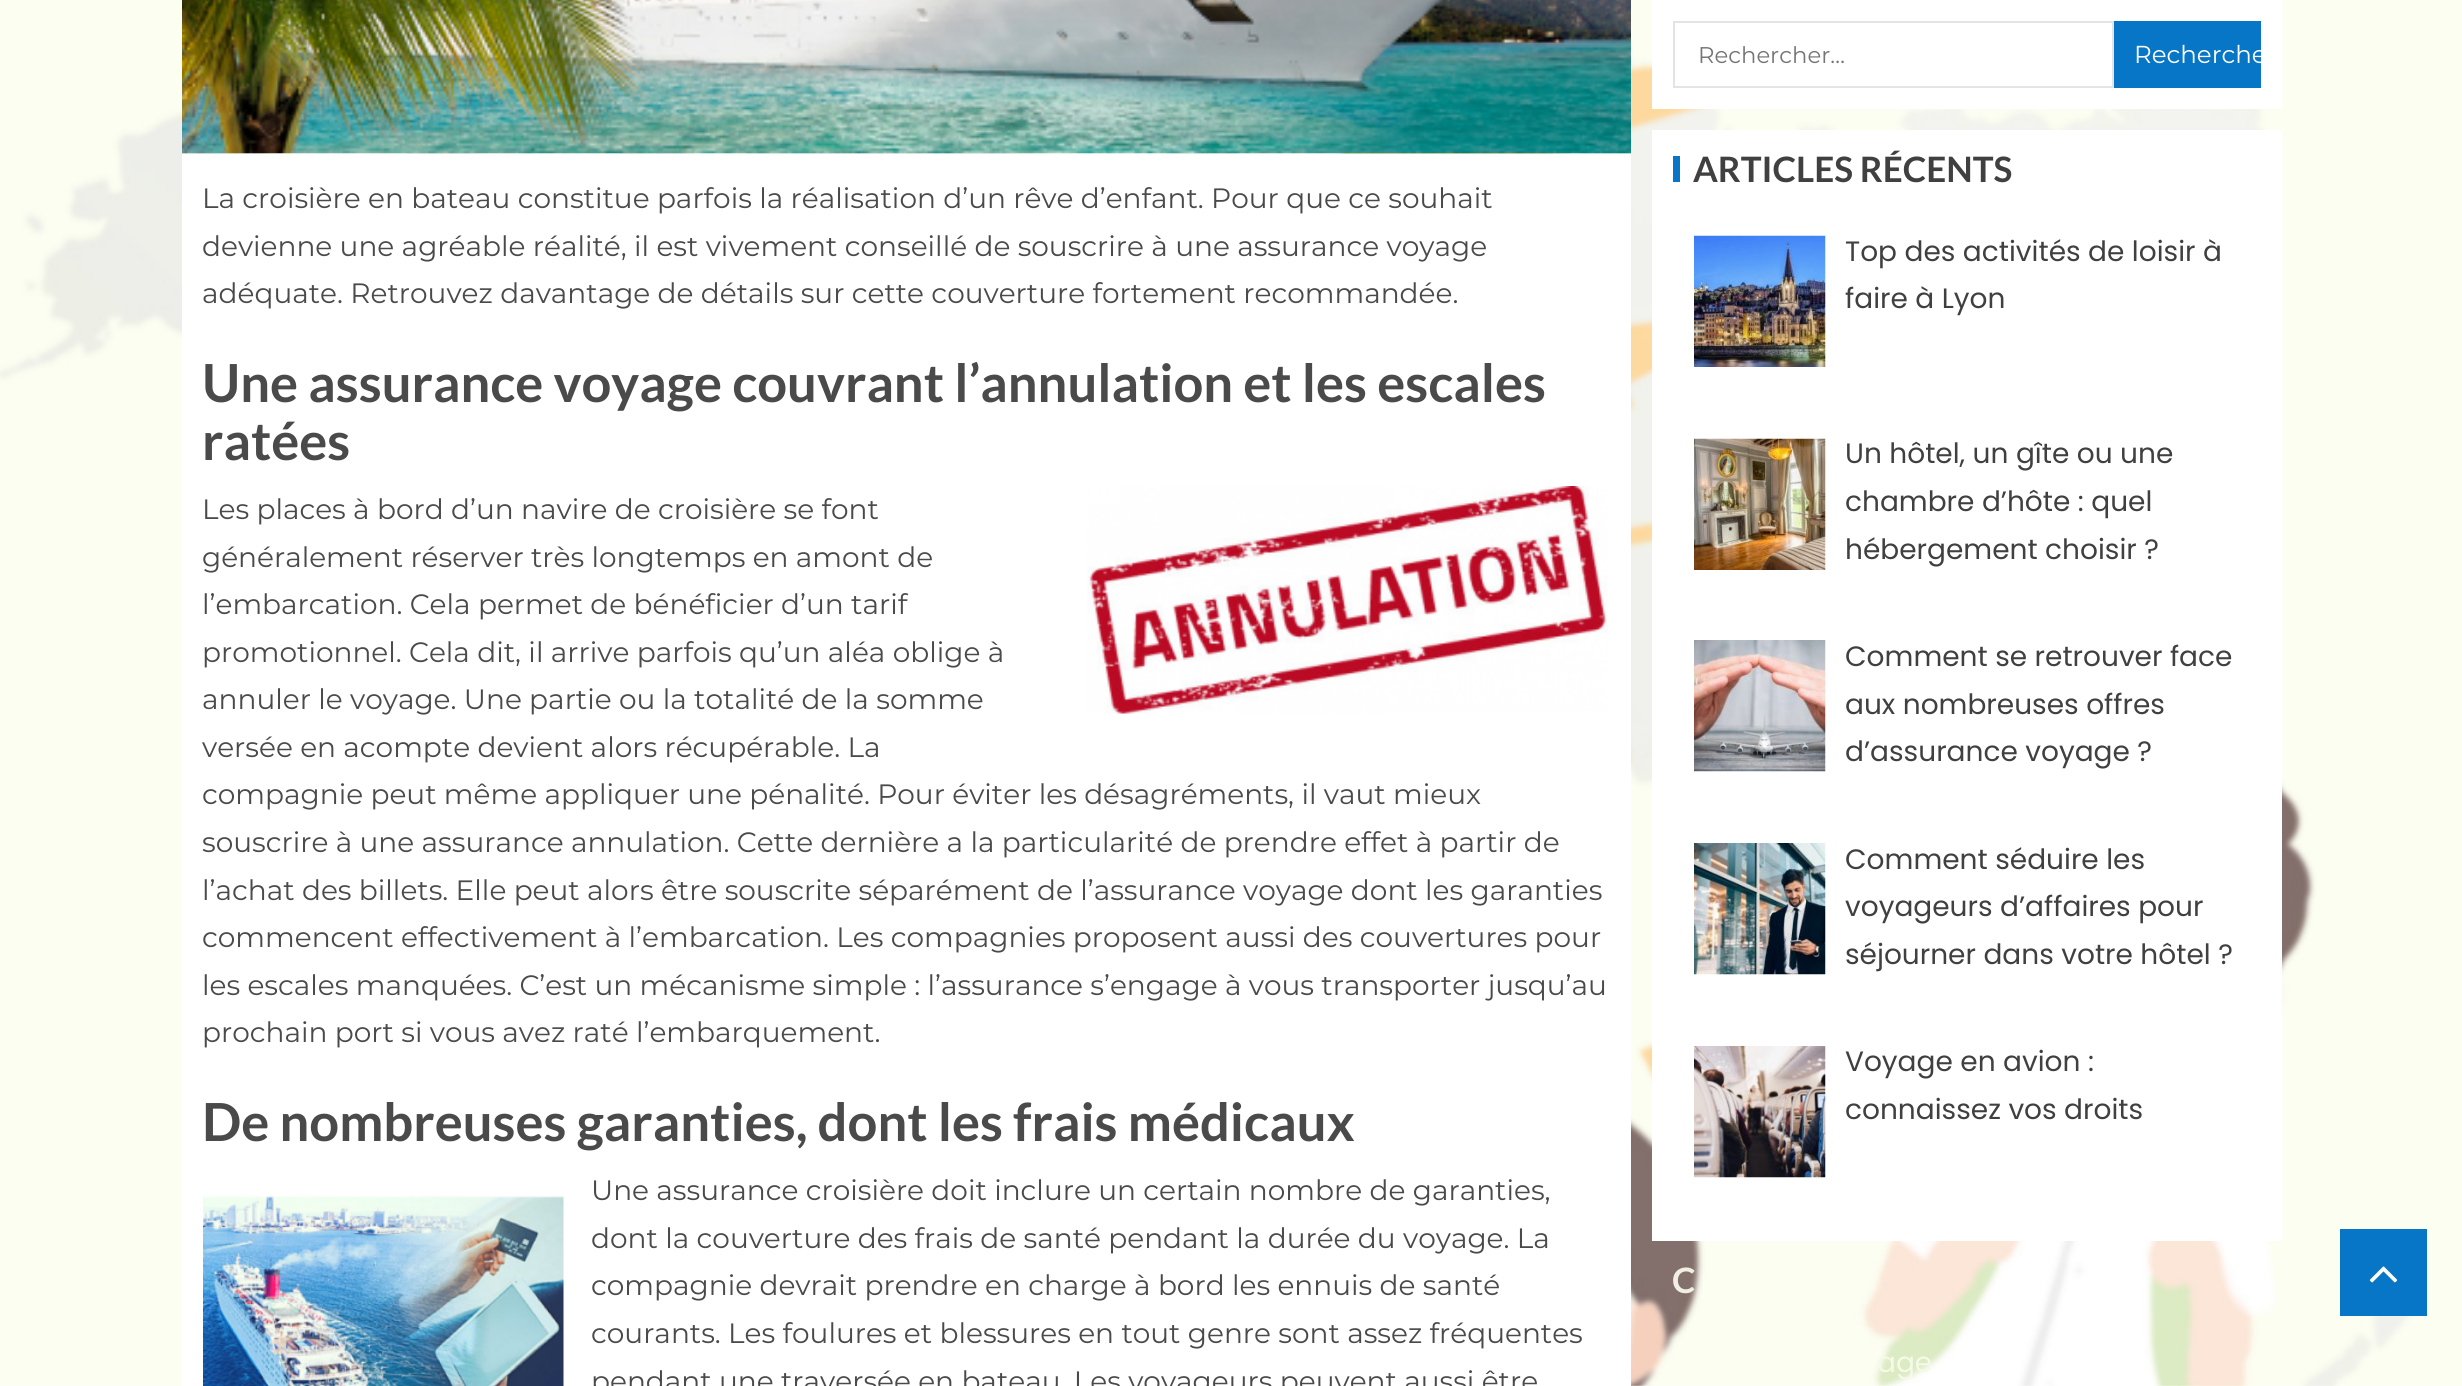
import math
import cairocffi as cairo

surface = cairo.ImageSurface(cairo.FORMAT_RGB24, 2462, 1386)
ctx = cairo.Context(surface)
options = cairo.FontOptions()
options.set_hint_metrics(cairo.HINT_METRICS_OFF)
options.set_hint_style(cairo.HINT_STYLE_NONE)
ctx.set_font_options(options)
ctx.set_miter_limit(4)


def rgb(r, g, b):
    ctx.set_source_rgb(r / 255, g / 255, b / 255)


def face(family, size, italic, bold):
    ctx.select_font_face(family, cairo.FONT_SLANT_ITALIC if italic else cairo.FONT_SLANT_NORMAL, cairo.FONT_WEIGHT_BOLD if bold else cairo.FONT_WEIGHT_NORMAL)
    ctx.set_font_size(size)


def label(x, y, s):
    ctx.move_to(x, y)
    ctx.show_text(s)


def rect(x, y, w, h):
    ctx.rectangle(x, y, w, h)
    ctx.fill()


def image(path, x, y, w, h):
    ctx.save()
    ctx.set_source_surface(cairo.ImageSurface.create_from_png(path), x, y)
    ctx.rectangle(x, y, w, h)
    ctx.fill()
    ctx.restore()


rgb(255, 255, 255)
ctx.paint()
image('image0.png', 0, 0, 2462, 1386)
image('image1.png', 182, 0, 1449, 154)
rgb(255, 255, 255)
rect(182, 154, 1449, 1232)
face('Montserrat', 28, 0, 0)
rgb(74, 74, 74)
label(202, 208, 'La croisière en bateau constitue parfois la réalisation d’un rêve d’enfant. Pour que ce souhait')
label(202, 256, 'devienne une agréable réalité, il est vivement conseillé de souscrire à une assurance voyage')
label(202, 303, 'adéquate. Retrouvez davantage de détails sur cette couverture fortement recommandée.')
face('Lato', 52.5, 0, 1)
label(202, 402, 'Une assurance voyage couvrant l’annulation et les escales')
label(202, 460, 'ratées')
face('Montserrat', 28, 0, 0)
label(202, 519, 'Les places à bord d’un navire de croisière se font')
image('image2.png', 1087, 486, 521, 228)
label(202, 567, 'généralement réserver très longtemps en amont de')
label(202, 614, 'l’embarcation. Cela permet de bénéficier d’un tarif')
label(202, 662, 'promotionnel. Cela dit, il arrive parfois qu’un aléa oblige à')
label(202, 709, 'annuler le voyage. Une partie ou la totalité de la somme')
label(202, 757, 'versée en acompte devient alors récupérable. La')
label(202, 804, 'compagnie peut même appliquer une pénalité. Pour éviter les désagréments, il vaut mieux')
label(202, 852, 'souscrire à une assurance annulation. Cette dernière a la particularité de prendre effet à partir de')
label(202, 900, 'l’achat des billets. Elle peut alors être souscrite séparément de l’assurance voyage dont les garanties')
label(202, 947, 'commencent effectivement à l’embarcation. Les compagnies proposent aussi des couvertures pour')
label(202, 995, 'les escales manquées. C’est un mécanisme simple : l’assurance s’engage à vous transporter jusqu’au')
label(202, 1042, 'prochain port si vous avez raté l’embarquement.')
face('Lato', 52.5, 0, 1)
label(202, 1141, 'De nombreuses garanties, dont les frais médicaux')
image('image3.png', 203, 1195, 361, 191)
face('Montserrat', 28, 0, 0)
label(591, 1200, 'Une assurance croisière doit inclure un certain nombre de garanties,')
label(591, 1248, 'dont la couverture des frais de santé pendant la durée du voyage. La')
label(591, 1295, 'compagnie devrait prendre en charge à bord les ennuis de santé')
label(591, 1343, 'courants. Les foulures et blessures en tout genre sont assez fréquentes')
label(591, 1391, 'pendant une traversée en bateau. Les voyageurs peuvent aussi être')
rgb(255, 255, 255)
rect(1652, 0, 630, 109)
ctx.rectangle(1674, 22, 439, 65)
rgb(228, 228, 228)
ctx.stroke()
face('Montserrat', 22.75, 0, 0)
rgb(117, 117, 117)
label(1698, 63, 'Rechercher…')
rgb(7, 118, 198)
rect(2114, 21, 147, 67)
ctx.save()
ctx.rectangle(2114, 21, 147, 67)
ctx.clip()
face('Montserrat', 24.5, 0, 0)
rgb(255, 255, 255)
label(2134, 63, 'Recherche')
ctx.restore()
rgb(255, 255, 255)
rect(1652, 130, 630, 1111)
rgb(7, 118, 198)
rect(1673, 156, 7, 26)
face('Lato', 35, 0, 1)
rgb(64, 64, 64)
label(1693, 182, 'ARTICLES RÉCENTS')
image('image4.png', 1694, 235, 132, 132)
face('Poppins', 28, 0, 0)
label(1845, 261, 'Top des activités de loisir à')
label(1845, 308, 'faire à Lyon')
image('image5.png', 1694, 438, 132, 132)
label(1845, 463, 'Un hôtel, un gîte ou une')
label(1845, 511, 'chambre d’hôte : quel')
label(1845, 559, 'hébergement choisir ?')
image('image6.png', 1694, 640, 132, 132)
label(1845, 666, 'Comment se retrouver face')
label(1845, 714, 'aux nombreuses offres')
label(1845, 761, 'd’assurance voyage ?')
image('image7.png', 1694, 843, 132, 132)
label(1845, 869, 'Comment séduire les')
label(1845, 916, 'voyageurs d’affaires pour')
label(1845, 964, 'séjourner dans votre hôtel ?')
image('image8.png', 1694, 1046, 132, 132)
label(1845, 1071, 'Voyage en avion :')
label(1845, 1119, 'connaissez vos droits')
face('Lato', 35, 0, 1)
rgb(240, 239, 227)
label(1672, 1293, 'C')
face('Poppins', 28, 0, 0)
rgb(245, 250, 232)
label(1877, 1372, 'age')
rgb(7, 118, 198)
rect(2340, 1229, 87, 87)
image('image9.png', 2369, 1266, 29, 17)
surface.write_to_png('render.png')
